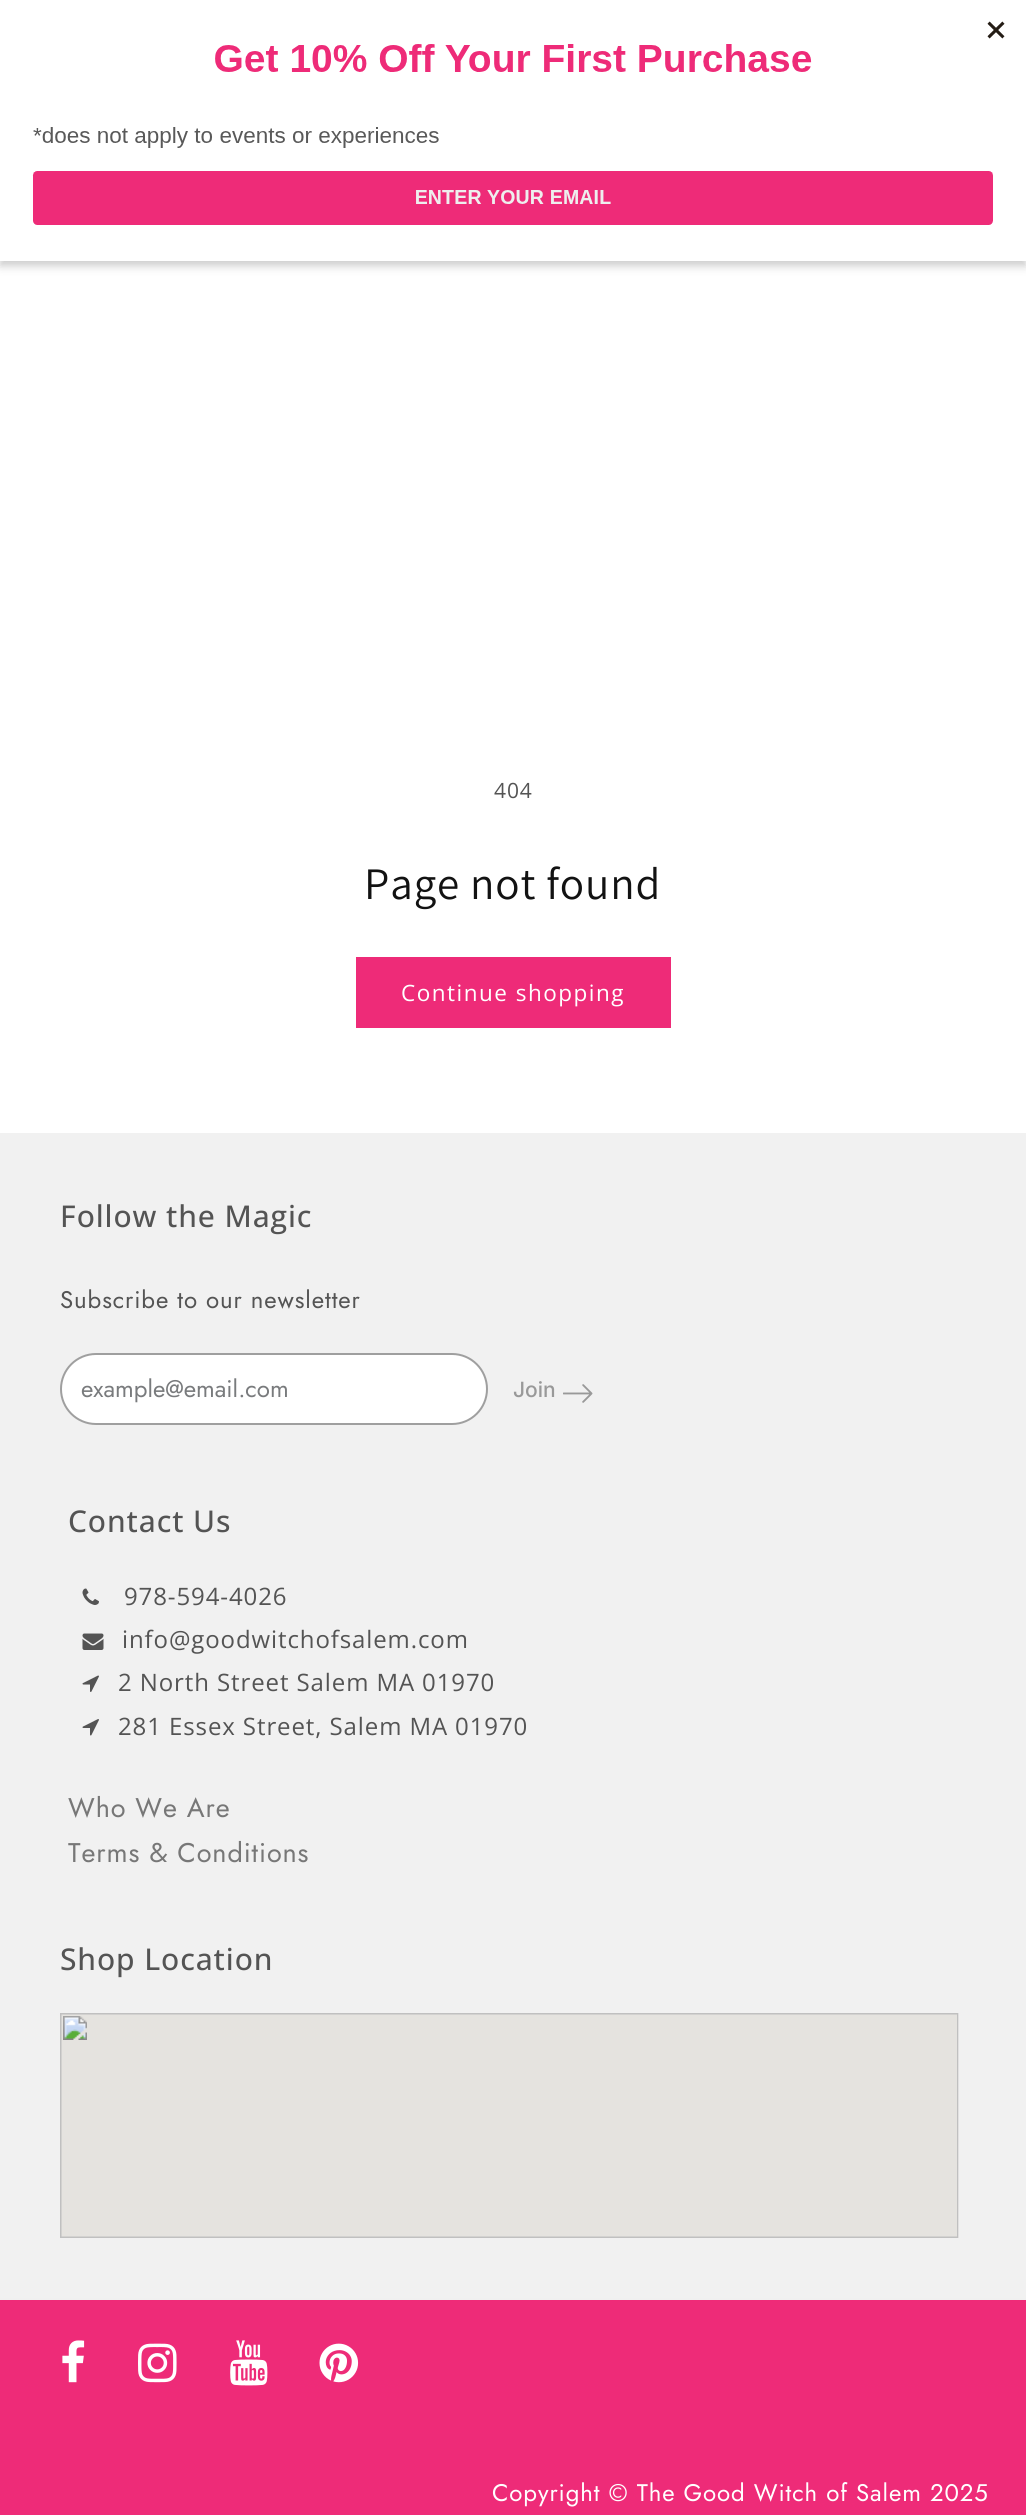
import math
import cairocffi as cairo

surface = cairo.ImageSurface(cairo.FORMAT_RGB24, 1026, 2515)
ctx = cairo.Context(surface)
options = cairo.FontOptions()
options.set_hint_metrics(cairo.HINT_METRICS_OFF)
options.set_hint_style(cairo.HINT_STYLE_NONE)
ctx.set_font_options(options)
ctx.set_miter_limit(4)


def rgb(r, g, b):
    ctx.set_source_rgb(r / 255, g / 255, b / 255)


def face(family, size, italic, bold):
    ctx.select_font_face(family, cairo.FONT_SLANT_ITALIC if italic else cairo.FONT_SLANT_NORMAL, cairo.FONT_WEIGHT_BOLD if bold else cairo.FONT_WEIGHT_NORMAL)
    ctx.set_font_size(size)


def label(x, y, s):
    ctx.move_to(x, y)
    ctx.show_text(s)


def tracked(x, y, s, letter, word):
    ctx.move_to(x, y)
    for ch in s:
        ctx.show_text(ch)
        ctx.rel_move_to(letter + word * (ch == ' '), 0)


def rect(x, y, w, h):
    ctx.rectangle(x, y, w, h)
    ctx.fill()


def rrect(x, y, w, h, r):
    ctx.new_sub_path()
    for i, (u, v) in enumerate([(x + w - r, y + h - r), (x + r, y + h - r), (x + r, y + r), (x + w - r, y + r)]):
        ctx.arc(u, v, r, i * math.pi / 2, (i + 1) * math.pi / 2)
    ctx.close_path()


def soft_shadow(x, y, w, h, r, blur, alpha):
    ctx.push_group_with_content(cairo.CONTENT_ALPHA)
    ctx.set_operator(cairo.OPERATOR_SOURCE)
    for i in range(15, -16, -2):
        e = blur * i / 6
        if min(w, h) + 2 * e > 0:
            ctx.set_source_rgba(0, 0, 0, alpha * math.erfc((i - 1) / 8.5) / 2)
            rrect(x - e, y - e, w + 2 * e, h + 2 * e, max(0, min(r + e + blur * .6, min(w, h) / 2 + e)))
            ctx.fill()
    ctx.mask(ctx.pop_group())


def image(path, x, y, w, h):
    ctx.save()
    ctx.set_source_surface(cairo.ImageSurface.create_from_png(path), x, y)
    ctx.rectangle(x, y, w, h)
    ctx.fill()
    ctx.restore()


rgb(255, 255, 255)
ctx.paint()
rgb(0, 0, 0)
soft_shadow(0, 5, 1026, 261, 0, 4.5, 0.2)
rgb(255, 255, 255)
rect(0, 0, 1026, 261)
image('image0.png', 32, 21, 973, 204)
face('Open Sans', 21, 0, 0)
rgb(84, 84, 84)
tracked(494, 798, '404', 0.9, 0)
face('Assistant', 45, 0, 0)
rgb(18, 18, 18)
tracked(364, 899, 'Page not found', 0.9, 0)
rgb(238, 43, 120)
rect(356, 957, 315, 71)
face('Open Sans', 22.5, 0, 0)
rgb(255, 255, 255)
tracked(401, 1001, 'Continue shopping', 1.5, 0)
rgb(241, 241, 241)
rect(0, 1133, 1026, 1165)
face('Open Sans Medium', 30, 0, 0)
rgb(84, 84, 84)
tracked(60, 1227, 'Follow the Magic', 0.9, 0)
face('Jost', 24, 0, 0)
tracked(60, 1308, 'Subscribe to our newsletter', 0.9, 0)
rgb(255, 255, 255)
rrect(61, 1354, 426, 70, 35)
ctx.fill_preserve()
rgb(159, 159, 159)
ctx.stroke()
rgb(121, 123, 125)
label(81, 1397, 'example@email.com')
face('Inter Medium', 21, 0, 0)
rgb(153, 153, 153)
label(513, 1397, 'Join')
image('image1.png', 563, 1384, 30, 19)
face('Open Sans Medium', 30, 0, 0)
rgb(84, 84, 84)
tracked(68, 1532, 'Contact Us', 0.9, 0)
image('image2.png', 82, 1588, 17, 17)
face('Open Sans', 24, 0, 0)
tracked(124, 1605, '978-594-4026', 0.9, 0)
image('image3.png', 82, 1633, 22, 17)
tracked(122, 1648, 'info@goodwitchofsalem.com', 0.9, 0)
image('image4.png', 82, 1675, 17, 17)
tracked(118, 1691, '2 North Street Salem MA 01970', 0.9, 0)
image('image5.png', 82, 1719, 17, 17)
tracked(118, 1735, '281 Essex Street, Salem MA 01970', 0.9, 0)
face('Jost', 27, 0, 0)
rgb(119, 119, 119)
tracked(68, 1817, 'Who We Are', 0.9, 0)
ctx.save()
ctx.rectangle(68, 1785, 898, 90)
ctx.clip()
tracked(68, 1862, 'Terms & Conditions', 0.9, 0)
ctx.restore()
face('Open Sans Medium', 30, 0, 0)
rgb(84, 84, 84)
tracked(60, 1970, 'Shop Location', 0.9, 0)
image('image6.png', 60, 2013, 899, 225)
rgb(238, 43, 120)
rect(0, 2300, 1026, 215)
rgb(240, 240, 240)
rect(0, 2298, 1026, 2)
image('image7.png', 62, 2340, 23, 43)
image('image8.png', 138, 2343, 39, 40)
image('image9.png', 230, 2340, 38, 46)
image('image10.png', 319, 2343, 40, 40)
face('Jost', 24, 0, 0)
rgb(255, 255, 255)
tracked(492, 2501, 'Copyright © The Good Witch of Salem 2025', 0.9, 0)
surface.write_to_png('render.png')
